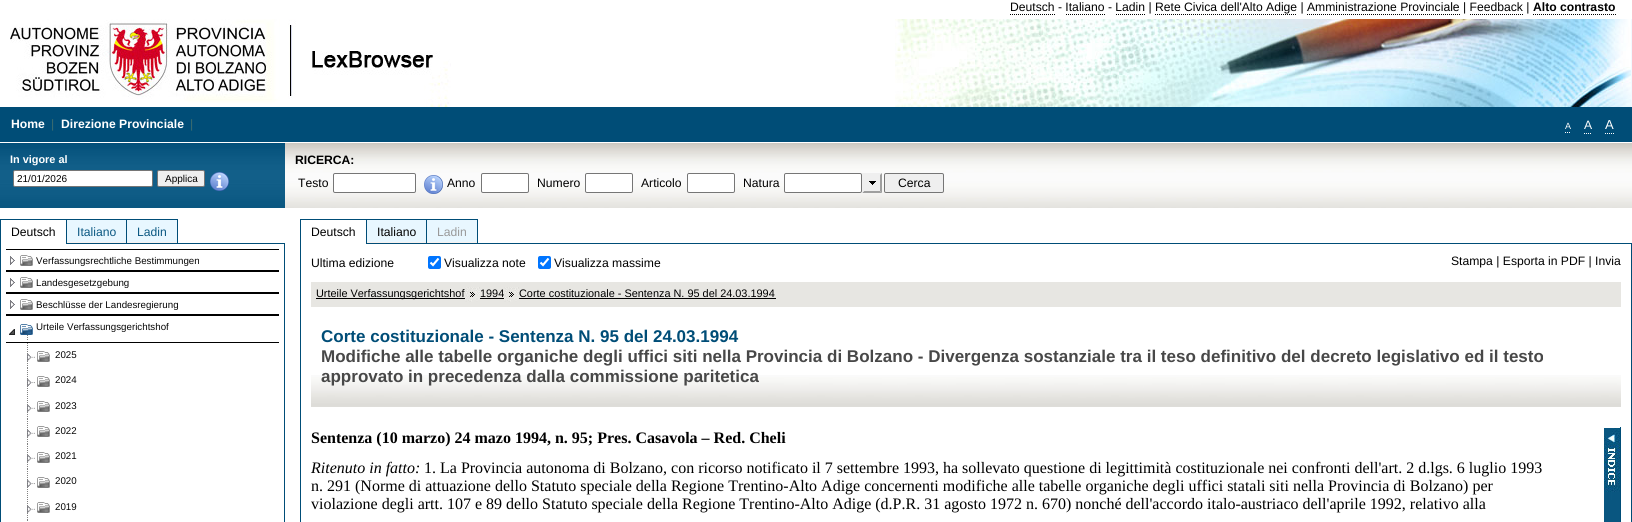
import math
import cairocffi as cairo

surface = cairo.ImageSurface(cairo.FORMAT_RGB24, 1632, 522)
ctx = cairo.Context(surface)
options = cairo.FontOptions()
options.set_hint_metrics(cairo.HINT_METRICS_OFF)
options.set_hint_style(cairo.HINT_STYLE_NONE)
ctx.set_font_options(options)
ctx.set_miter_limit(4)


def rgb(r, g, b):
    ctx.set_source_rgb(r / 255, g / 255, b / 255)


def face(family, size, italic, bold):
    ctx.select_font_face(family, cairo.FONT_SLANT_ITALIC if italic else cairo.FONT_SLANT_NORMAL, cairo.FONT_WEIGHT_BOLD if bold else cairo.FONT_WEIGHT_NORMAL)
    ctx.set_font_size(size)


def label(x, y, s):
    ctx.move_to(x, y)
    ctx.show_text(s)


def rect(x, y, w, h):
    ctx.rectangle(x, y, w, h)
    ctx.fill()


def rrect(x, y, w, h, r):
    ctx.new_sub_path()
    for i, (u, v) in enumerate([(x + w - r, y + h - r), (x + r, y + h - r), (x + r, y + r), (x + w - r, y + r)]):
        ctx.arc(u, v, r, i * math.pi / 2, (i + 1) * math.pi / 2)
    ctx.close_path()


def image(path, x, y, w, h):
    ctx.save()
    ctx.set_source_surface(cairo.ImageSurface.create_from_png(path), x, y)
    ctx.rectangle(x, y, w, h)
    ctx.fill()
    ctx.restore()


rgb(255, 255, 255)
ctx.paint()
face('Liberation Sans', 12.15, 0, 0)
rgb(0, 0, 0)
label(1010, 11, 'Deutsch - Italiano - Ladin | Rete Civica dell\'Alto Adige | Amministrazione Provinciale | Feedback |')
ctx.new_path()
ctx.move_to(1010, 14.5)
ctx.line_to(1055, 14.5)
ctx.set_line_width(1)
ctx.set_dash([1, 1])
ctx.stroke()
face('Liberation Sans', 12.15, 0, 1)
label(1533, 11, 'Alto contrasto')
ctx.new_path()
ctx.move_to(1533, 14.5)
ctx.line_to(1616, 14.5)
ctx.stroke()
ctx.new_path()
ctx.move_to(1066, 14.5)
ctx.line_to(1105, 14.5)
ctx.stroke()
ctx.new_path()
ctx.move_to(1116, 14.5)
ctx.line_to(1145, 14.5)
ctx.stroke()
ctx.new_path()
ctx.move_to(1155, 14.5)
ctx.line_to(1297, 14.5)
ctx.stroke()
ctx.new_path()
ctx.move_to(1307, 14.5)
ctx.line_to(1460, 14.5)
ctx.stroke()
ctx.new_path()
ctx.move_to(1470, 14.5)
ctx.line_to(1523, 14.5)
ctx.stroke()
image('image0.png', 895, 19, 737, 88)
image('image1.png', 10, 19, 441, 88)
rgb(0, 77, 119)
rect(0, 107, 1632, 35)
rgb(255, 255, 255)
label(11, 128, 'Home')
face('Liberation Sans', 12.15, 0, 0)
rgb(60, 108, 110)
label(51, 128, '|')
face('Liberation Sans', 12.15, 0, 1)
rgb(255, 255, 255)
label(61, 128, 'Direzione Provinciale')
face('Liberation Sans', 12.15, 0, 0)
rgb(60, 108, 110)
label(190, 128, '|')
face('Liberation Sans', 9, 0, 0)
rgb(255, 255, 255)
label(1565, 129, 'A')
ctx.new_path()
ctx.move_to(1565, 132.5)
ctx.line_to(1566, 132.5)
ctx.move_to(1567, 132.5)
ctx.line_to(1568, 132.5)
ctx.move_to(1569, 132.5)
ctx.line_to(1570, 132.5)
ctx.set_dash([])
ctx.stroke()
face('Liberation Sans', 12.15, 0, 0)
label(1584, 129, 'A')
ctx.new_path()
ctx.move_to(1584, 133.5)
ctx.line_to(1592, 133.5)
ctx.set_dash([1, 1])
ctx.stroke()
face('Liberation Sans', 13, 0, 0)
label(1605, 129, 'A')
ctx.new_path()
ctx.move_to(1605, 133.5)
ctx.line_to(1614, 133.5)
ctx.stroke()
image('image2.png', 285, 143, 1347, 65)
image('image3.png', 0, 143, 285, 65)
face('Liberation Sans', 10.9, 0, 1)
label(10, 163, 'In vigore al')
rrect(13.5, 170.5, 139, 16, 1.5)
ctx.fill_preserve()
rgb(118, 118, 118)
ctx.set_dash([])
ctx.stroke()
face('Liberation Sans', 10, 0, 0)
rgb(0, 0, 0)
label(17, 182, '21/01/2026')
rgb(239, 239, 239)
rrect(157.5, 170.5, 47, 16, 1.5)
ctx.fill_preserve()
rgb(118, 118, 118)
ctx.stroke()
rgb(0, 0, 0)
label(165, 182, 'Applica')
image('image4.png', 210, 172, 19, 19)
face('Liberation Sans', 12.15, 0, 1)
label(295, 164, 'RICERCA:')
face('Liberation Sans', 12.15, 0, 0)
label(298, 187, 'Testo')
rgb(255, 255, 255)
rrect(333.5, 173.5, 82, 19, 1.5)
ctx.fill_preserve()
rgb(118, 118, 118)
ctx.stroke()
image('image5.png', 424, 175, 19, 19)
rgb(0, 0, 0)
label(447, 187, 'Anno')
rgb(255, 255, 255)
rrect(481.5, 173.5, 47, 19, 1.5)
ctx.fill_preserve()
rgb(118, 118, 118)
ctx.stroke()
rgb(0, 0, 0)
label(537, 187, 'Numero')
rgb(255, 255, 255)
rrect(585.5, 173.5, 47, 19, 1.5)
ctx.fill_preserve()
rgb(118, 118, 118)
ctx.stroke()
rgb(0, 0, 0)
label(641, 187, 'Articolo')
rgb(255, 255, 255)
rrect(687.5, 173.5, 47, 19, 1.5)
ctx.fill_preserve()
rgb(118, 118, 118)
ctx.stroke()
rgb(0, 0, 0)
label(743, 187, 'Natura')
rgb(255, 255, 255)
rrect(784.5, 173.5, 77, 19, 1.5)
ctx.fill_preserve()
rgb(118, 118, 118)
ctx.stroke()
rgb(239, 239, 239)
rect(862, 173, 20, 20)
image('image6.png', 869, 181, 7, 4)
rgb(159, 159, 159)
ctx.new_path()
ctx.move_to(882, 173)
ctx.line_to(882, 193)
ctx.line_to(880, 191)
ctx.line_to(880, 175)
ctx.close_path()
ctx.fill()
ctx.new_path()
ctx.move_to(882, 193)
ctx.line_to(862, 193)
ctx.line_to(864, 191)
ctx.line_to(880, 191)
ctx.close_path()
ctx.fill()
rgb(239, 239, 239)
ctx.new_path()
ctx.move_to(862, 193)
ctx.line_to(862, 173)
ctx.line_to(864, 175)
ctx.line_to(864, 191)
ctx.close_path()
ctx.fill()
rrect(884.5, 173.5, 59, 19, 1.5)
ctx.fill_preserve()
rgb(118, 118, 118)
ctx.stroke()
rgb(0, 0, 0)
label(898, 187, 'Cerca')
rgb(0, 77, 119)
rect(178, 243, 107, 1)
rect(0, 219, 178, 1)
rect(0, 219, 1, 303)
rgb(0, 0, 0)
label(11, 236, 'Deutsch')
rgb(232, 247, 255)
rect(67, 220, 59, 22)
image('image7.png', 67, 242, 59, 2)
rgb(0, 77, 119)
rect(66, 219, 1, 25)
rgb(11, 88, 130)
label(77, 236, 'Italiano')
rgb(232, 247, 255)
rect(127, 220, 50, 22)
image('image8.png', 127, 242, 50, 2)
rgb(0, 77, 119)
rect(177, 219, 1, 25)
rect(126, 219, 1, 25)
rgb(11, 88, 130)
label(137, 236, 'Ladin')
rgb(0, 77, 119)
rect(284, 244, 1, 278)
rgb(0, 0, 0)
rect(6, 249, 273, 1)
rect(6, 270, 273, 2)
image('image9.png', 10, 256, 5, 9)
image('image10.png', 20, 255, 13, 11)
face('Liberation Sans', 9.75, 0, 0)
rgb(7, 7, 7)
label(36, 264, 'Verfassungsrechtliche Bestimmungen')
rgb(0, 0, 0)
rect(6, 292, 273, 2)
image('image9.png', 10, 278, 5, 9)
image('image10.png', 20, 277, 13, 11)
rgb(7, 7, 7)
label(36, 286, 'Landesgesetzgebung')
rgb(0, 0, 0)
rect(6, 314, 273, 2)
image('image9.png', 10, 300, 5, 9)
image('image10.png', 20, 299, 13, 11)
rgb(7, 7, 7)
label(36, 308, 'Beschlüsse der Landesregierung')
rgb(0, 0, 0)
rect(6, 342, 273, 1)
image('image11.png', 9, 329, 6, 6)
image('image12.png', 20, 324, 13, 16)
rgb(7, 7, 7)
label(36, 330, 'Urteile Verfassungsgerichtshof')
image('image13.png', 27, 343, 1, 25)
image('image14.png', 27, 354, 8, 7)
image('image10.png', 37, 351, 13, 11)
label(55, 358, '2025')
image('image13.png', 27, 368, 1, 25)
image('image15.png', 27, 379, 8, 8)
image('image10.png', 37, 376, 13, 11)
label(55, 383, '2024')
image('image13.png', 27, 394, 1, 25)
image('image14.png', 27, 405, 8, 7)
image('image10.png', 37, 401, 13, 11)
label(55, 409, '2023')
image('image13.png', 27, 419, 1, 25)
image('image14.png', 27, 430, 8, 7)
image('image10.png', 37, 426, 13, 11)
label(55, 434, '2022')
image('image13.png', 27, 444, 1, 25)
image('image14.png', 27, 455, 8, 7)
image('image10.png', 37, 452, 13, 11)
label(55, 459, '2021')
image('image13.png', 27, 469, 1, 25)
image('image15.png', 27, 480, 8, 8)
image('image10.png', 37, 477, 13, 11)
label(55, 484, '2020')
image('image13.png', 27, 495, 1, 25)
image('image14.png', 27, 506, 8, 7)
image('image10.png', 37, 502, 13, 11)
label(55, 510, '2019')
rgb(128, 128, 128)
rect(27, 520, 1, 1)
rgb(0, 77, 119)
rect(478, 243, 1154, 1)
rect(300, 219, 178, 1)
rect(300, 219, 1, 25)
face('Liberation Sans', 12.15, 0, 0)
rgb(0, 0, 0)
label(311, 236, 'Deutsch')
rgb(232, 247, 255)
rect(367, 220, 59, 22)
image('image7.png', 367, 242, 59, 2)
rgb(0, 77, 119)
rect(366, 219, 1, 25)
rgb(0, 0, 0)
label(377, 236, 'Italiano')
rgb(232, 247, 255)
rect(427, 220, 50, 22)
image('image8.png', 427, 242, 50, 2)
rgb(0, 77, 119)
rect(477, 219, 1, 25)
rect(426, 219, 1, 25)
rgb(153, 153, 153)
label(437, 236, 'Ladin')
rgb(0, 77, 119)
rect(1631, 244, 1, 278)
rect(300, 244, 1, 278)
rgb(0, 0, 0)
label(311, 267, 'Ultima edizione')
rgb(0, 117, 255)
rrect(428, 256, 13, 13, 2)
ctx.fill()
ctx.new_path()
ctx.move_to(430.5, 262.5)
ctx.line_to(433, 265)
ctx.line_to(438.5, 258.5)
rgb(255, 255, 255)
ctx.set_line_width(2.1)
ctx.stroke()
rgb(0, 0, 0)
label(444, 267, 'Visualizza note')
rgb(0, 117, 255)
rrect(538, 256, 13, 13, 2)
ctx.fill()
ctx.new_path()
ctx.move_to(540.5, 262.5)
ctx.line_to(543, 265)
ctx.line_to(548.5, 258.5)
rgb(255, 255, 255)
ctx.stroke()
rgb(0, 0, 0)
label(554, 267, 'Visualizza massime')
label(1451, 265, 'Stampa | Esporta in PDF | Invia')
rgb(231, 230, 226)
rect(311, 282, 1310, 25)
rgb(0, 0, 0)
rect(316, 298, 149, 1)
face('Liberation Sans', 10.9, 0, 0)
label(316, 297, 'Urteile Verfassungsgerichtshof')
image('image16.png', 465, 287, 15, 15)
label(480, 297, '1994')
rect(480, 298, 24, 1)
image('image16.png', 504, 287, 15, 15)
label(519, 297, 'Corte costituzionale - Sentenza N. 95 del 24.03.1994')
rect(519, 298, 257, 1)
image('image17.png', 311, 375, 1310, 32)
face('Liberation Sans', 17.02, 0, 1)
rgb(0, 77, 119)
label(321, 342, 'Corte costituzionale - Sentenza N. 95 del 24.03.1994')
rgb(72, 72, 72)
label(321, 362, 'Modifiche alle tabelle organiche degli uffici siti nella Provincia di Bolzano - Divergenza sostanziale tra il teso definitivo del decreto legislativo ed il testo')
label(321, 382, 'approvato in precedenza dalla commissione paritetica')
face('Liberation Serif', 16, 0, 1)
rgb(0, 0, 0)
label(311, 443, 'Sentenza (10 marzo) 24 mazo 1994, n. 95; Pres. Casavola – Red. Cheli')
face('Liberation Serif', 16, 1, 0)
label(311, 473, 'Ritenuto in fatto:')
face('Liberation Serif', 16, 0, 0)
label(424, 473, '1. La Provincia autonoma di Bolzano, con ricorso notificato il 7 settembre 1993, ha sollevato questione di legittimità costituzionale nei confronti dell\'art. 2 d.lgs. 6 luglio 1993')
label(311, 491, 'n. 291 (Norme di attuazione dello Statuto speciale della Regione Trentino-Alto Adige concernenti modifiche alle tabelle organiche degli uffici statali siti nella Provincia di Bolzano) per')
label(311, 509, 'violazione degli artt. 107 e 89 dello Statuto speciale della Regione Trentino-Alto Adige (d.P.R. 31 agosto 1972 n. 670) nonché dell\'accordo italo-austriaco dell\'aprile 1992, relativo alla')
rgb(0, 77, 119)
rect(1620, 427, 1, 95)
image('image18.png', 1604, 428, 16, 94)
surface.write_to_png('render.png')
